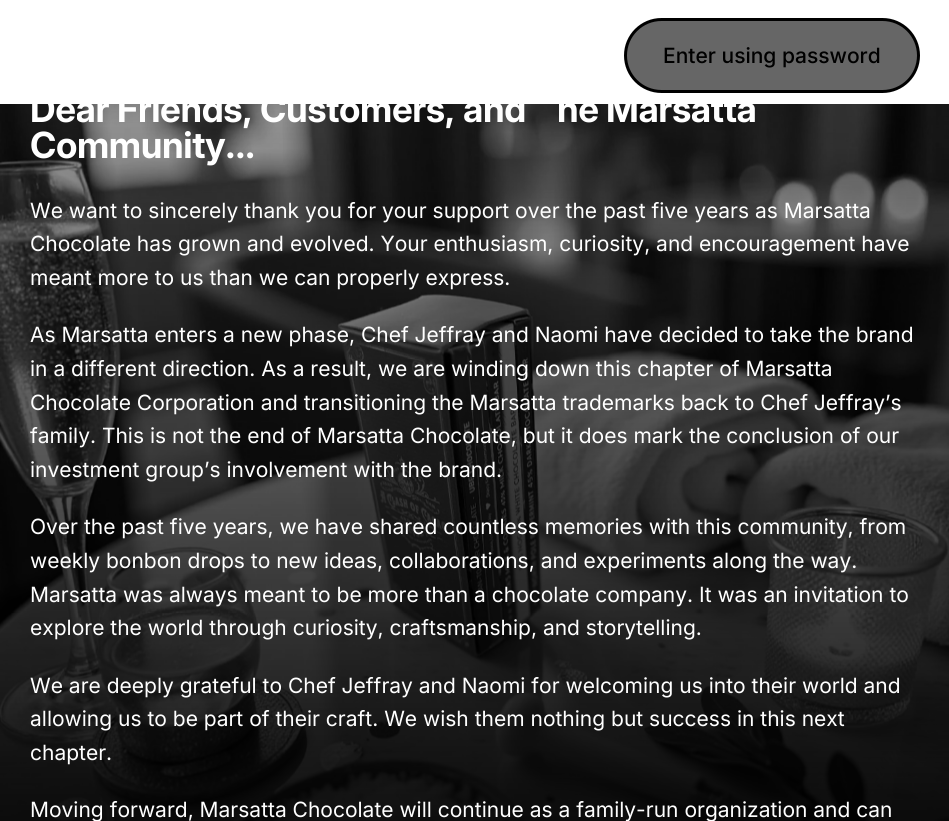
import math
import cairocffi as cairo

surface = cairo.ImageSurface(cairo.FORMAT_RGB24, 949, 821)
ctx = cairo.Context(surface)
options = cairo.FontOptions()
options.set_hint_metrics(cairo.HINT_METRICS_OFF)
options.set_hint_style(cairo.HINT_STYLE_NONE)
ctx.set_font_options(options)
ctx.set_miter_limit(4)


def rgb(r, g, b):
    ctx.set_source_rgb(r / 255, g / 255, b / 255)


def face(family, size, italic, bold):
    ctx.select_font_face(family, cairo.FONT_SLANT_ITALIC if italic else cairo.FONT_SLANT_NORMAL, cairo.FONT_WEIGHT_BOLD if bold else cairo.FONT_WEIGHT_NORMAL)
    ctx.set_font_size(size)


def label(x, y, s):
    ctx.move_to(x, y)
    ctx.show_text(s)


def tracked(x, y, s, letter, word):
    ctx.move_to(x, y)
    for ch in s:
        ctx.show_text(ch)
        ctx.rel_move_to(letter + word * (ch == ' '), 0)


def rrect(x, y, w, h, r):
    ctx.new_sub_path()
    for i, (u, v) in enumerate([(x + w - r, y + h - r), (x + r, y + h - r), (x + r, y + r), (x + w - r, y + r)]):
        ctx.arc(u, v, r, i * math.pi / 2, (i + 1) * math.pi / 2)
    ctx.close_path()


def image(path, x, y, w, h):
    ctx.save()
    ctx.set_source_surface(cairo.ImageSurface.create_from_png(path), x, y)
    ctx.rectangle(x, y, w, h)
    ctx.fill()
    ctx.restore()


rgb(255, 255, 255)
ctx.paint()
rgb(102, 102, 102)
rrect(625.5, 19.5, 293, 72, 36)
ctx.fill_preserve()
rgb(0, 0, 0)
ctx.set_line_width(3)
ctx.stroke()
face('Inter Medium', 21, 0, 0)
label(663, 63, 'Enter using password')
image('image0.png', 0, 104, 949, 717)
ctx.save()
ctx.rectangle(29, 104, 82, 27)
ctx.clip()
face('Inter', 36, 0, 1)
rgb(255, 255, 255)
tracked(30, 122, 'Dear', -0.4, 0)
ctx.restore()
ctx.save()
ctx.rectangle(116, 104, 138, 27)
ctx.clip()
face('Inter', 36, 0, 1)
rgb(255, 255, 255)
tracked(117, 122, 'Friends,', -0.4, 0)
ctx.restore()
ctx.save()
ctx.rectangle(258, 104, 200, 27)
ctx.clip()
face('Inter', 36, 0, 1)
rgb(255, 255, 255)
tracked(260, 122, 'Customers,', -0.4, 0)
ctx.restore()
ctx.save()
ctx.rectangle(461, 104, 67, 27)
ctx.clip()
face('Inter', 36, 0, 1)
rgb(255, 255, 255)
tracked(463, 122, 'and', -0.4, 0)
ctx.restore()
ctx.save()
ctx.rectangle(533, 104, 67, 27)
ctx.clip()
face('Inter', 36, 0, 1)
rgb(255, 255, 255)
tracked(557, 122, 'he', -0.4, 0)
ctx.restore()
ctx.save()
ctx.rectangle(605, 104, 154, 27)
ctx.clip()
face('Inter', 36, 0, 1)
rgb(255, 255, 255)
tracked(606, 122, 'Marsatta', -0.4, 0)
ctx.restore()
face('Inter', 36, 0, 1)
rgb(255, 255, 255)
tracked(30, 158, 'Community...', -0.4, 0)
face('Inter', 21, 0, 0)
label(30, 218, 'We want to sincerely thank you for your support over the past five years as Marsatta')
label(30, 251, 'Chocolate has grown and evolved. Your enthusiasm, curiosity, and encouragement have')
label(30, 285, 'meant more to us than we can properly express.')
label(30, 342, 'As Marsatta enters a new phase, Chef Jeffray and Naomi have decided to take the brand')
label(30, 376, 'in a different direction. As a result, we are winding down this chapter of Marsatta')
label(30, 410, 'Chocolate Corporation and transitioning the Marsatta trademarks back to Chef Jeffray’s')
label(30, 443, 'family. This is not the end of Marsatta Chocolate, but it does mark the conclusion of our')
label(30, 477, 'investment group’s involvement with the brand.')
label(30, 534, 'Over the past five years, we have shared countless memories with this community, from')
label(30, 568, 'weekly bonbon drops to new ideas, collaborations, and experiments along the way.')
label(30, 602, 'Marsatta was always meant to be more than a chocolate company. It was an invitation to')
label(30, 635, 'explore the world through curiosity, craftsmanship, and storytelling.')
label(30, 693, 'We are deeply grateful to Chef Jeffray and Naomi for welcoming us into their world and')
label(30, 726, 'allowing us to be part of their craft. We wish them nothing but success in this next')
label(30, 760, 'chapter.')
label(30, 817, 'Moving forward, Marsatta Chocolate will continue as a family-run organization and can')
surface.write_to_png('render.png')
